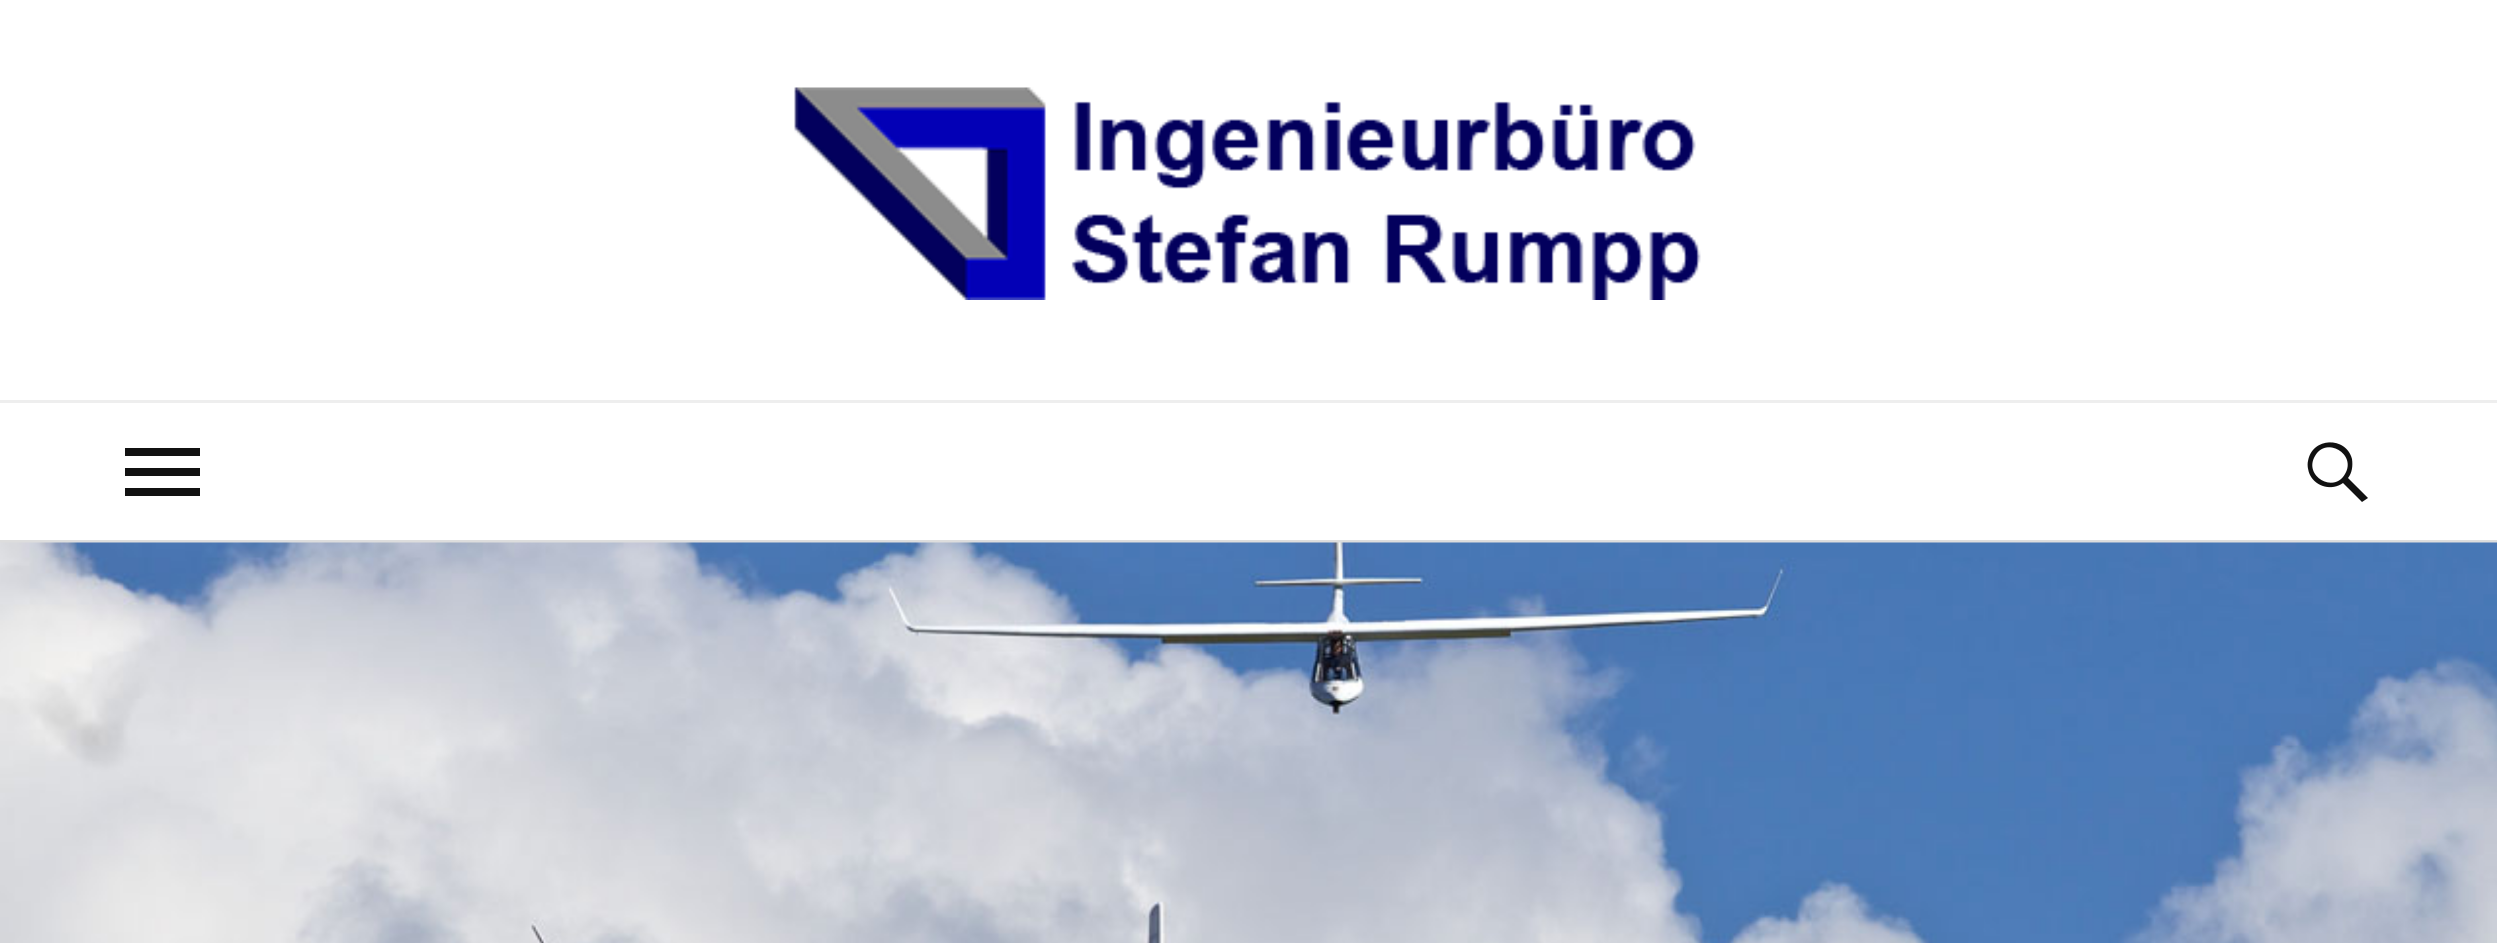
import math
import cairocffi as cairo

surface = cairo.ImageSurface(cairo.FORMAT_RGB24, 2497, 943)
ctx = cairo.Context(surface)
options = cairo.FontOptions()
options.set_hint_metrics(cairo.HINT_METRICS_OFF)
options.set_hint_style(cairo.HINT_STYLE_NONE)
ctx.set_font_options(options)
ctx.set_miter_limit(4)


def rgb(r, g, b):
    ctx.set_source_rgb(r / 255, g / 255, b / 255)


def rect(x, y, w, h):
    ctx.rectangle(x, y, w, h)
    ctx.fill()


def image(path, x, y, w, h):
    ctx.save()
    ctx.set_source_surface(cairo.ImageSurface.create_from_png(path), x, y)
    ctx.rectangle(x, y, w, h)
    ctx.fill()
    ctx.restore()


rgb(255, 255, 255)
ctx.paint()
image('image0.png', 794, 87, 907, 213)
rgb(238, 238, 238)
rect(0, 400, 2497, 3)
rgb(17, 17, 17)
rect(125, 448, 75, 8)
rect(125, 468, 75, 8)
rect(125, 488, 75, 8)
ctx.new_path()
ctx.move_to(2368, 498)
ctx.line_to(2362, 502)
ctx.line_to(2343, 483)
ctx.curve_to(2332, 491, 2316, 487, 2310, 475)
ctx.curve_to(2308, 471, 2307, 465, 2308, 461)
ctx.curve_to(2312, 437, 2346, 436, 2352, 459)
ctx.curve_to(2353, 466, 2352, 473, 2348, 478)
ctx.close_path()
ctx.move_to(2315, 456)
ctx.curve_to(2303, 476, 2334, 494, 2345, 474)
ctx.curve_to(2357, 454, 2326, 436, 2315, 456)
ctx.close_path()
ctx.fill()
rgb(221, 221, 221)
rect(0, 540, 2497, 3)
image('image1.png', 0, 542, 2497, 401)
surface.write_to_png('render.png')
